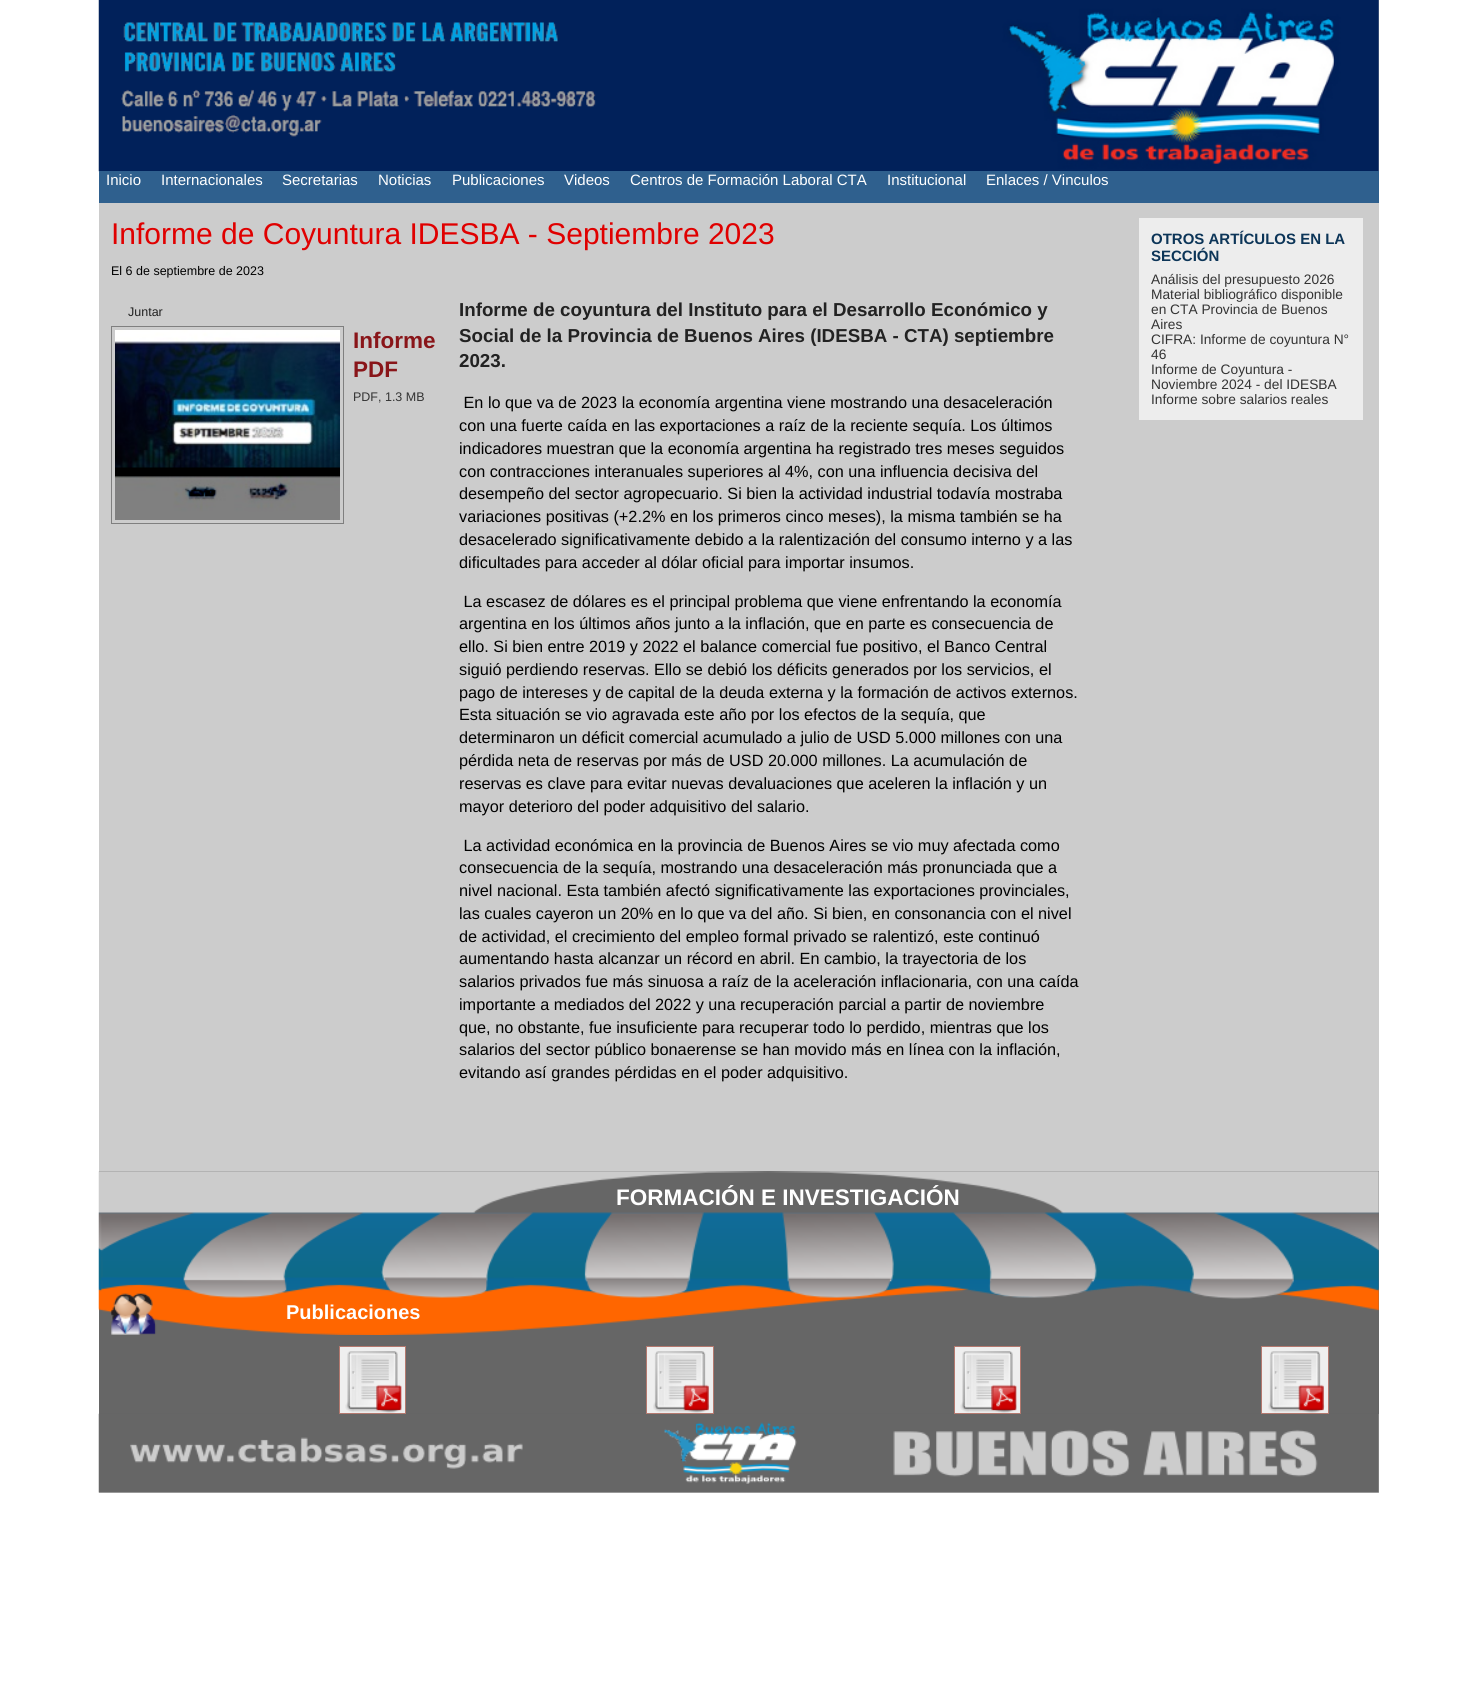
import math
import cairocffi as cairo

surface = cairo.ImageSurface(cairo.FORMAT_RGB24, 1476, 1707)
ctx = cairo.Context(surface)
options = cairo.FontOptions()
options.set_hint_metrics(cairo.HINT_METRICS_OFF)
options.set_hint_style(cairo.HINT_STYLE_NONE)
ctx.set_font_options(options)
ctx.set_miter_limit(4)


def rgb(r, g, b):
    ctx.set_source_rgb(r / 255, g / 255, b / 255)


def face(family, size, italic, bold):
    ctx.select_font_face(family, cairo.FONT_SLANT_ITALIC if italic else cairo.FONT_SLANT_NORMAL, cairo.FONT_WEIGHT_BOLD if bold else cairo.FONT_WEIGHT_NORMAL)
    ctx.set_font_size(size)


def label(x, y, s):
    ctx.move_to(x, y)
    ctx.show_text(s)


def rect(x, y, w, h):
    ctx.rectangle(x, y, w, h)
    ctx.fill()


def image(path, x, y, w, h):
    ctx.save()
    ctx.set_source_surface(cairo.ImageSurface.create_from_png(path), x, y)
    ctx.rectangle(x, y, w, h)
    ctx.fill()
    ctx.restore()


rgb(255, 255, 255)
ctx.paint()
rgb(204, 204, 204)
rect(99, 0, 1280, 1493)
image('image0.png', 98, 0, 1281, 172)
rgb(47, 96, 142)
rect(99, 171, 1280, 32)
face('Liberation Sans', 15, 0, 0)
rgb(255, 255, 255)
label(106, 185, 'Inicio')
label(161, 185, 'Internacionales')
label(282, 185, 'Secretarias')
label(378, 185, 'Noticias')
label(452, 185, 'Publicaciones')
label(564, 185, 'Videos')
label(630, 185, 'Centros de Formación Laboral CTA')
label(887, 185, 'Institucional')
label(986, 185, 'Enlaces / Vinculos')
face('Liberation Sans', 30, 0, 0)
rgb(224, 0, 0)
label(111, 244, 'Informe de Coyuntura IDESBA - Septiembre 2023')
face('Liberation Sans', 12.5, 0, 0)
rgb(0, 0, 0)
label(111, 275, 'El 6 de septiembre de 2023')
rgb(34, 34, 34)
label(128, 316, 'Juntar')
ctx.rectangle(111.5, 326.5, 232, 197)
rgb(127, 127, 127)
ctx.set_line_width(1)
ctx.stroke()
image('image1.png', 115, 330, 225, 190)
face('Liberation Sans', 22.5, 0, 1)
rgb(137, 21, 25)
label(353, 348, 'Informe')
label(353, 377, 'PDF')
face('Liberation Sans', 12.5, 0, 0)
rgb(51, 51, 51)
label(353, 401, 'PDF, 1.3 MB')
face('Liberation Sans', 18.75, 0, 1)
rgb(34, 34, 34)
label(459, 316, 'Informe de coyuntura del Instituto para el Desarrollo Económico y')
label(459, 342, 'Social de la Provincia de Buenos Aires (IDESBA - CTA) septiembre')
label(459, 367, '2023.')
face('Liberation Sans', 16.25, 0, 0)
rgb(0, 0, 0)
label(459, 408, ' En lo que va de 2023 la economía argentina viene mostrando una desaceleración')
label(459, 431, 'con una fuerte caída en las exportaciones a raíz de la reciente sequía. Los últimos')
label(459, 454, 'indicadores muestran que la economía argentina ha registrado tres meses seguidos')
label(459, 477, 'con contracciones interanuales superiores al 4%, con una influencia decisiva del')
label(459, 499, 'desempeño del sector agropecuario. Si bien la actividad industrial todavía mostraba')
label(459, 522, 'variaciones positivas (+2.2% en los primeros cinco meses), la misma también se ha')
label(459, 545, 'desacelerado significativamente debido a la ralentización del consumo interno y a las')
label(459, 568, 'dificultades para acceder al dólar oficial para importar insumos.')
label(459, 607, ' La escasez de dólares es el principal problema que viene enfrentando la economía')
label(459, 629, 'argentina en los últimos años junto a la inflación, que en parte es consecuencia de')
label(459, 652, 'ello. Si bien entre 2019 y 2022 el balance comercial fue positivo, el Banco Central')
label(459, 675, 'siguió perdiendo reservas. Ello se debió los déficits generados por los servicios, el')
label(459, 698, 'pago de intereses y de capital de la deuda externa y la formación de activos externos.')
label(459, 720, 'Esta situación se vio agravada este año por los efectos de la sequía, que')
label(459, 743, 'determinaron un déficit comercial acumulado a julio de USD 5.000 millones con una')
label(459, 766, 'pérdida neta de reservas por más de USD 20.000 millones. La acumulación de')
label(459, 789, 'reservas es clave para evitar nuevas devaluaciones que aceleren la inflación y un')
label(459, 812, 'mayor deterioro del poder adquisitivo del salario.')
label(459, 851, ' La actividad económica en la provincia de Buenos Aires se vio muy afectada como')
label(459, 873, 'consecuencia de la sequía, mostrando una desaceleración más pronunciada que a')
label(459, 896, 'nivel nacional. Esta también afectó significativamente las exportaciones provinciales,')
label(459, 919, 'las cuales cayeron un 20% en lo que va del año. Si bien, en consonancia con el nivel')
label(459, 942, 'de actividad, el crecimiento del empleo formal privado se ralentizó, este continuó')
label(459, 964, 'aumentando hasta alcanzar un récord en abril. En cambio, la trayectoria de los')
label(459, 987, 'salarios privados fue más sinuosa a raíz de la aceleración inflacionaria, con una caída')
label(459, 1010, 'importante a mediados del 2022 y una recuperación parcial a partir de noviembre')
label(459, 1033, 'que, no obstante, fue insuficiente para recuperar todo lo perdido, mientras que los')
label(459, 1055, 'salarios del sector público bonaerense se han movido más en línea con la inflación,')
label(459, 1078, 'evitando así grandes pérdidas en el poder adquisitivo.')
rgb(237, 237, 237)
rect(1139, 218, 224, 202)
face('Liberation Sans', 15, 0, 1)
rgb(12, 53, 88)
label(1151, 244, 'OTROS ARTÍCULOS EN LA')
label(1151, 261, 'SECCIÓN')
face('Liberation Sans', 13.75, 0, 0)
rgb(51, 51, 51)
label(1151, 284, 'Análisis del presupuesto 2026')
label(1151, 299, 'Material bibliográfico disponible')
label(1151, 314, 'en CTA Provincia de Buenos')
label(1151, 329, 'Aires')
label(1151, 344, 'CIFRA: Informe de coyuntura N°')
label(1151, 359, '46')
label(1151, 374, 'Informe de Coyuntura -')
label(1151, 389, 'Noviembre 2024 - del IDESBA')
label(1151, 404, 'Informe sobre salarios reales')
rgb(102, 102, 102)
rect(99, 1171, 1280, 243)
image('image2.png', 98, 1171, 1281, 164)
face('Liberation Sans', 22.5, 0, 1)
rgb(255, 255, 255)
label(616, 1205, 'FORMACIÓN E INVESTIGACIÓN')
face('Liberation Sans', 20, 0, 1)
label(286, 1319, 'Publicaciones')
image('image6.png', 98, 1413, 1281, 80)
rgb(239, 239, 239)
ctx.rectangle(339.5, 1346.5, 66, 67)
ctx.fill_preserve()
rgb(180, 121, 111)
ctx.stroke()
image('image3.png', 345, 1351, 57, 62)
rgb(239, 239, 239)
ctx.rectangle(646.5, 1346.5, 67, 67)
ctx.fill_preserve()
rgb(180, 121, 111)
ctx.stroke()
image('image4.png', 653, 1351, 57, 62)
rgb(239, 239, 239)
ctx.rectangle(954.5, 1346.5, 66, 67)
ctx.fill_preserve()
rgb(180, 121, 111)
ctx.stroke()
image('image5.png', 960, 1351, 57, 62)
rgb(239, 239, 239)
ctx.rectangle(1261.5, 1346.5, 67, 67)
ctx.fill_preserve()
rgb(180, 121, 111)
ctx.stroke()
image('image4.png', 1268, 1351, 57, 62)
surface.write_to_png('render.png')
